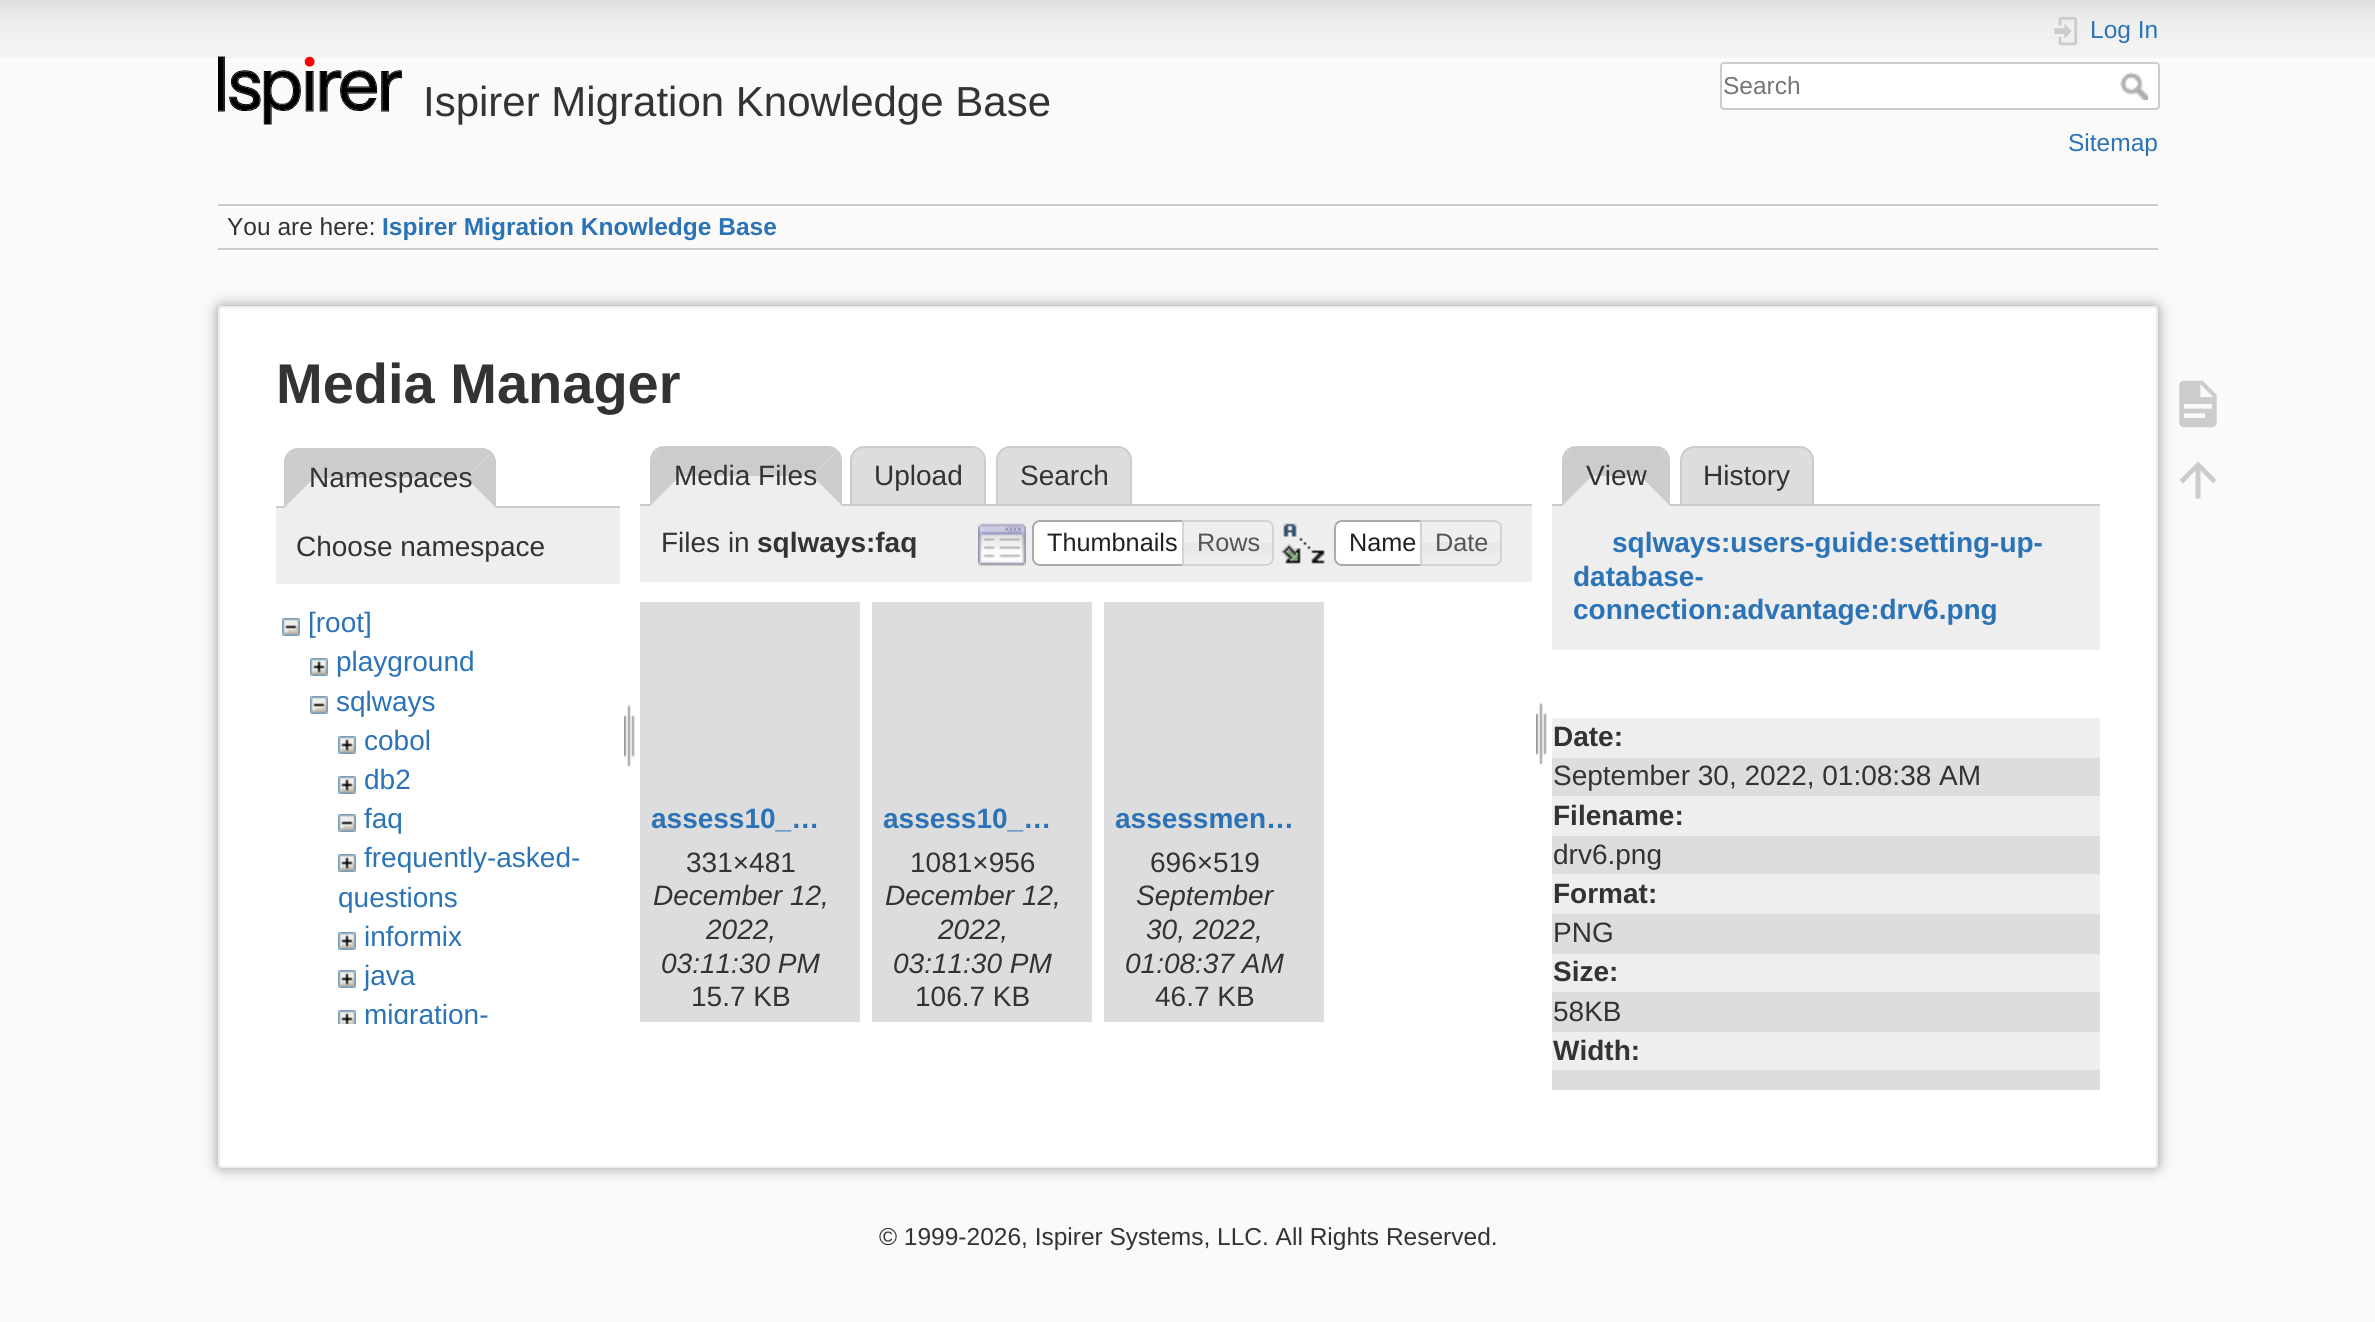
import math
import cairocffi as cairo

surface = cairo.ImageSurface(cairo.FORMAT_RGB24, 2375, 1322)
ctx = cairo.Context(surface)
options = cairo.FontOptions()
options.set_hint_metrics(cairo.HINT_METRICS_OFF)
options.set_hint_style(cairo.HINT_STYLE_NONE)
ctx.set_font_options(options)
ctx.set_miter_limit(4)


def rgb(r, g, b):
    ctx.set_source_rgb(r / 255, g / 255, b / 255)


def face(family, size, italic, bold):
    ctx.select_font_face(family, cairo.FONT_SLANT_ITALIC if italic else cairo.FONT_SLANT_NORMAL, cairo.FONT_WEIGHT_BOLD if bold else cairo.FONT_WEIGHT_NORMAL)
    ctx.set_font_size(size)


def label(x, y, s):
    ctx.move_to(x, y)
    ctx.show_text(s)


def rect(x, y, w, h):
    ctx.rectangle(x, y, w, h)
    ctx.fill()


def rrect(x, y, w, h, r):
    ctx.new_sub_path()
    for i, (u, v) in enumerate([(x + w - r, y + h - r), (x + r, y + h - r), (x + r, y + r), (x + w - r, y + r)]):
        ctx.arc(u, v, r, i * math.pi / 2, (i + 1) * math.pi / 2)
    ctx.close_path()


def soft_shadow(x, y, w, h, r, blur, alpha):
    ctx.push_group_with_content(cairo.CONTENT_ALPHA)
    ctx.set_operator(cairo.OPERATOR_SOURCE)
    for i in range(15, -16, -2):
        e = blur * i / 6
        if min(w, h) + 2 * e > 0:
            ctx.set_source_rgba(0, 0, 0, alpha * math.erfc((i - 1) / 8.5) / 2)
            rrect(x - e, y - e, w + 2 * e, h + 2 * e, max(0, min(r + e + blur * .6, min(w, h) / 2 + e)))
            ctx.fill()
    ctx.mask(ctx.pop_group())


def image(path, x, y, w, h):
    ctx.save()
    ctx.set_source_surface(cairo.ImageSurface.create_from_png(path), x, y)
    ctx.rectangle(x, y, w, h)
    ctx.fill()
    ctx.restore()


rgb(251, 250, 249)
ctx.paint()
image('image0.png', 0, 0, 2375, 58)
image('image1.png', 218, 56, 184, 69)
face('Liberation Sans', 42, 0, 0)
rgb(51, 51, 51)
label(423, 116, 'Ispirer Migration Knowledge Base')
image('image2.png', 2054, 16, 24, 30)
face('Liberation Sans', 24.5, 0, 0)
rgb(43, 115, 183)
label(2090, 38, 'Log In')
rgb(255, 255, 255)
rrect(1721, 63, 438, 46, 3)
ctx.fill_preserve()
rgb(204, 204, 204)
ctx.stroke()
rgb(117, 117, 117)
label(1723, 94, 'Search')
image('image3.png', 2120, 72, 28, 28)
rgb(43, 115, 183)
label(2068, 151, 'Sitemap')
rgb(204, 204, 204)
rect(218, 204, 1940, 2)
rgb(255, 255, 255)
rect(218, 250, 1940, 2)
rect(218, 206, 1940, 2)
rgb(204, 204, 204)
rect(218, 248, 1940, 2)
rgb(51, 51, 51)
label(227, 235, 'You are here:')
face('Liberation Sans', 24.5, 0, 1)
rgb(43, 115, 183)
label(382, 235, 'Ispirer Migration Knowledge Base')
rgb(153, 153, 153)
soft_shadow(218, 306, 1940, 862, 4, 7, 1)
rgb(255, 255, 255)
rrect(219, 307, 1938, 860, 3)
ctx.fill_preserve()
rgb(238, 238, 238)
ctx.stroke()
face('Liberation Sans', 56, 0, 1)
rgb(51, 51, 51)
label(276, 403, 'Media Manager')
rgb(204, 204, 204)
ctx.new_path()
ctx.move_to(298, 448)
ctx.line_to(482, 448)
ctx.curve_to(486, 448, 490, 450, 492, 452)
ctx.line_to(466, 478)
ctx.line_to(314, 478)
ctx.line_to(288, 452)
ctx.curve_to(290, 450, 294, 448, 298, 448)
ctx.close_path()
ctx.fill()
rect(276, 506, 344, 2)
ctx.new_path()
ctx.move_to(492, 452)
ctx.line_to(466, 478)
ctx.line_to(496, 508)
ctx.line_to(496, 462)
ctx.curve_to(496, 458, 494, 454, 492, 452)
ctx.close_path()
ctx.fill()
rgb(238, 238, 238)
ctx.new_path()
ctx.move_to(496, 508)
ctx.line_to(466, 478)
ctx.line_to(314, 478)
ctx.line_to(284, 508)
ctx.close_path()
ctx.fill()
rgb(204, 204, 204)
ctx.new_path()
ctx.move_to(284, 508)
ctx.line_to(284, 462)
ctx.curve_to(284, 458, 286, 454, 288, 452)
ctx.line_to(314, 478)
ctx.close_path()
ctx.fill()
face('Liberation Sans', 28, 0, 0)
rgb(51, 51, 51)
label(309, 487, 'Namespaces')
rgb(238, 238, 238)
rect(276, 508, 344, 76)
rgb(51, 51, 51)
label(296, 556, 'Choose namespace')
image('image4.png', 282, 618, 18, 18)
rgb(43, 115, 183)
label(308, 632, '[root]')
image('image5.png', 310, 658, 18, 18)
label(336, 671, 'playground')
image('image4.png', 310, 696, 18, 18)
label(336, 711, 'sqlways')
image('image5.png', 338, 736, 18, 18)
label(364, 750, 'cobol')
image('image5.png', 338, 776, 18, 18)
label(364, 789, 'db2')
image('image4.png', 338, 814, 18, 18)
label(364, 828, 'faq')
image('image5.png', 338, 854, 18, 18)
label(364, 867, 'frequently-asked-')
label(338, 907, 'questions')
image('image5.png', 338, 932, 18, 18)
label(364, 946, 'informix')
image('image5.png', 338, 970, 18, 18)
label(364, 985, 'java')
image('image6.png', 338, 1010, 18, 14)
ctx.save()
ctx.rectangle(276, 604, 344, 420)
ctx.clip()
label(364, 1024, 'migration-')
ctx.restore()
image('image7.png', 624, 704, 11, 63)
rgb(204, 204, 204)
ctx.new_path()
ctx.move_to(664, 446)
ctx.line_to(828, 446)
ctx.curve_to(832, 446, 836, 448, 838, 450)
ctx.line_to(812, 476)
ctx.line_to(680, 476)
ctx.line_to(654, 450)
ctx.curve_to(656, 448, 660, 446, 664, 446)
ctx.close_path()
ctx.fill()
rgb(221, 221, 221)
ctx.new_path()
ctx.move_to(864, 447)
ctx.line_to(972, 447)
ctx.curve_to(979, 447, 985, 453, 985, 460)
ctx.line_to(985, 505)
ctx.line_to(851, 505)
ctx.line_to(851, 460)
ctx.curve_to(851, 453, 857, 447, 864, 447)
ctx.close_path()
ctx.fill_preserve()
rgb(204, 204, 204)
ctx.stroke()
rgb(221, 221, 221)
ctx.new_path()
ctx.move_to(1010, 447)
ctx.line_to(1118, 447)
ctx.curve_to(1125, 447, 1131, 453, 1131, 460)
ctx.line_to(1131, 505)
ctx.line_to(997, 505)
ctx.line_to(997, 460)
ctx.curve_to(997, 453, 1003, 447, 1010, 447)
ctx.close_path()
ctx.fill_preserve()
rgb(204, 204, 204)
ctx.stroke()
rect(640, 504, 892, 2)
ctx.new_path()
ctx.move_to(838, 450)
ctx.line_to(812, 476)
ctx.line_to(842, 506)
ctx.line_to(842, 460)
ctx.curve_to(842, 456, 840, 452, 838, 450)
ctx.close_path()
ctx.fill()
rgb(238, 238, 238)
ctx.new_path()
ctx.move_to(842, 506)
ctx.line_to(812, 476)
ctx.line_to(680, 476)
ctx.line_to(650, 506)
ctx.close_path()
ctx.fill()
rgb(204, 204, 204)
ctx.new_path()
ctx.move_to(650, 506)
ctx.line_to(650, 460)
ctx.curve_to(650, 456, 652, 452, 654, 450)
ctx.line_to(680, 476)
ctx.close_path()
ctx.fill()
rgb(51, 51, 51)
label(674, 485, 'Media Files')
label(874, 485, 'Upload')
label(1020, 485, 'Search')
rgb(238, 238, 238)
rect(640, 506, 892, 76)
rgb(51, 51, 51)
label(661, 552, 'Files in')
face('Liberation Sans', 28, 0, 1)
label(757, 552, 'sqlways:faq')
image('image8.png', 978, 523, 48, 43)
rgb(255, 255, 255)
ctx.new_path()
ctx.move_to(1040, 520)
ctx.line_to(1192, 520)
ctx.line_to(1192, 566)
ctx.line_to(1040, 566)
ctx.curve_to(1035.5, 566, 1032, 562.5, 1032, 558)
ctx.line_to(1032, 528)
ctx.curve_to(1032, 523.5, 1035.5, 520, 1040, 520)
ctx.close_path()
ctx.fill()
image('image9.png', 1032, 520, 6, 46)
ctx.new_path()
ctx.move_to(1040, 521)
ctx.line_to(1191, 521)
ctx.line_to(1191, 565)
ctx.line_to(1040, 565)
ctx.curve_to(1036, 565, 1033, 562, 1033, 558)
ctx.line_to(1033, 528)
ctx.curve_to(1033, 524, 1036, 521, 1040, 521)
ctx.close_path()
rgb(170, 170, 170)
ctx.stroke()
face('Liberation Sans', 25.25, 0, 0)
rgb(33, 33, 33)
label(1047, 551, 'Thumbnails')
image('image10.png', 1184, 520, 90, 46)
ctx.new_path()
ctx.move_to(1183, 521)
ctx.line_to(1266, 521)
ctx.curve_to(1270, 521, 1273, 524, 1273, 528)
ctx.line_to(1273, 558)
ctx.curve_to(1273, 562, 1270, 565, 1266, 565)
ctx.line_to(1183, 565)
ctx.close_path()
rgb(211, 211, 211)
ctx.stroke()
rgb(85, 85, 85)
label(1197, 551, 'Rows')
image('image11.png', 1281, 523, 44, 41)
rgb(255, 255, 255)
ctx.new_path()
ctx.move_to(1342, 520)
ctx.line_to(1430, 520)
ctx.line_to(1430, 566)
ctx.line_to(1342, 566)
ctx.curve_to(1337.5, 566, 1334, 562.5, 1334, 558)
ctx.line_to(1334, 528)
ctx.curve_to(1334, 523.5, 1337.5, 520, 1342, 520)
ctx.close_path()
ctx.fill()
image('image9.png', 1334, 520, 6, 46)
ctx.new_path()
ctx.move_to(1342, 521)
ctx.line_to(1429, 521)
ctx.line_to(1429, 565)
ctx.line_to(1342, 565)
ctx.curve_to(1338, 565, 1335, 562, 1335, 558)
ctx.line_to(1335, 528)
ctx.curve_to(1335, 524, 1338, 521, 1342, 521)
ctx.close_path()
rgb(170, 170, 170)
ctx.stroke()
rgb(33, 33, 33)
label(1349, 551, 'Name')
image('image12.png', 1422, 520, 80, 46)
ctx.new_path()
ctx.move_to(1421, 521)
ctx.line_to(1494, 521)
ctx.curve_to(1498, 521, 1501, 524, 1501, 528)
ctx.line_to(1501, 558)
ctx.curve_to(1501, 562, 1498, 565, 1494, 565)
ctx.line_to(1421, 565)
ctx.close_path()
rgb(211, 211, 211)
ctx.stroke()
rgb(85, 85, 85)
label(1435, 551, 'Date')
image('image7.png', 1536, 702, 11, 63)
rgb(221, 221, 221)
rect(640, 602, 220, 420)
face('Liberation Sans', 28, 0, 1)
rgb(43, 115, 183)
label(651, 828, 'assess10_…')
face('Liberation Sans', 28, 0, 0)
rgb(51, 51, 51)
label(686, 872, '331×481')
face('Liberation Sans', 28, 1, 0)
label(653, 905, 'December 12,')
label(706, 939, '2022,')
label(661, 973, '03:11:30 PM')
face('Liberation Sans', 28, 0, 0)
label(691, 1006, '15.7 KB')
rgb(221, 221, 221)
rect(872, 602, 220, 420)
face('Liberation Sans', 28, 0, 1)
rgb(43, 115, 183)
label(883, 828, 'assess10_…')
face('Liberation Sans', 28, 0, 0)
rgb(51, 51, 51)
label(910, 872, '1081×956')
face('Liberation Sans', 28, 1, 0)
label(885, 905, 'December 12,')
label(938, 939, '2022,')
label(893, 973, '03:11:30 PM')
face('Liberation Sans', 28, 0, 0)
label(915, 1006, '106.7 KB')
rgb(221, 221, 221)
rect(1104, 602, 220, 420)
face('Liberation Sans', 28, 0, 1)
rgb(43, 115, 183)
label(1115, 828, 'assessmen…')
face('Liberation Sans', 28, 0, 0)
rgb(51, 51, 51)
label(1150, 872, '696×519')
face('Liberation Sans', 28, 1, 0)
label(1136, 905, 'September')
label(1146, 939, '30, 2022,')
label(1125, 973, '01:08:37 AM')
face('Liberation Sans', 28, 0, 0)
label(1155, 1006, '46.7 KB')
rgb(204, 204, 204)
ctx.new_path()
ctx.move_to(1576, 446)
ctx.line_to(1656, 446)
ctx.curve_to(1660, 446, 1664, 448, 1666, 450)
ctx.line_to(1640, 476)
ctx.line_to(1592, 476)
ctx.line_to(1566, 450)
ctx.curve_to(1568, 448, 1572, 446, 1576, 446)
ctx.close_path()
ctx.fill()
rgb(221, 221, 221)
ctx.new_path()
ctx.move_to(1694, 447)
ctx.line_to(1800, 447)
ctx.curve_to(1807, 447, 1813, 453, 1813, 460)
ctx.line_to(1813, 505)
ctx.line_to(1681, 505)
ctx.line_to(1681, 460)
ctx.curve_to(1681, 453, 1687, 447, 1694, 447)
ctx.close_path()
ctx.fill_preserve()
rgb(204, 204, 204)
ctx.stroke()
rect(1552, 504, 548, 2)
ctx.new_path()
ctx.move_to(1666, 450)
ctx.line_to(1640, 476)
ctx.line_to(1670, 506)
ctx.line_to(1670, 460)
ctx.curve_to(1670, 456, 1668, 452, 1666, 450)
ctx.close_path()
ctx.fill()
rgb(238, 238, 238)
ctx.new_path()
ctx.move_to(1670, 506)
ctx.line_to(1640, 476)
ctx.line_to(1592, 476)
ctx.line_to(1562, 506)
ctx.close_path()
ctx.fill()
rgb(204, 204, 204)
ctx.new_path()
ctx.move_to(1562, 506)
ctx.line_to(1562, 460)
ctx.curve_to(1562, 456, 1564, 452, 1566, 450)
ctx.line_to(1592, 476)
ctx.close_path()
ctx.fill()
rgb(51, 51, 51)
label(1586, 485, 'View')
label(1703, 485, 'History')
rgb(238, 238, 238)
rect(1552, 506, 548, 144)
face('Liberation Sans', 28, 0, 1)
rgb(43, 115, 183)
label(1612, 552, 'sqlways:users-guide:setting-up-')
label(1573, 586, 'database-')
label(1573, 619, 'connection:advantage:drv6.png')
rgb(238, 238, 238)
rect(1552, 718, 548, 40)
rgb(51, 51, 51)
label(1553, 746, 'Date:')
rgb(221, 221, 221)
rect(1552, 758, 548, 38)
face('Liberation Sans', 28, 0, 0)
rgb(51, 51, 51)
label(1553, 785, 'September 30, 2022, 01:08:38 AM')
rgb(238, 238, 238)
rect(1552, 796, 548, 40)
face('Liberation Sans', 28, 0, 1)
rgb(51, 51, 51)
label(1553, 825, 'Filename:')
rgb(221, 221, 221)
rect(1552, 836, 548, 38)
face('Liberation Sans', 28, 0, 0)
rgb(51, 51, 51)
label(1553, 864, 'drv6.png')
rgb(238, 238, 238)
rect(1552, 874, 548, 40)
face('Liberation Sans', 28, 0, 1)
rgb(51, 51, 51)
label(1553, 903, 'Format:')
rgb(221, 221, 221)
rect(1552, 914, 548, 40)
face('Liberation Sans', 28, 0, 0)
rgb(51, 51, 51)
label(1553, 942, 'PNG')
rgb(238, 238, 238)
rect(1552, 954, 548, 38)
face('Liberation Sans', 28, 0, 1)
rgb(51, 51, 51)
label(1553, 981, 'Size:')
rgb(221, 221, 221)
rect(1552, 992, 548, 40)
face('Liberation Sans', 28, 0, 0)
rgb(51, 51, 51)
label(1553, 1021, '58KB')
rgb(238, 238, 238)
rect(1552, 1032, 548, 38)
face('Liberation Sans', 28, 0, 1)
rgb(51, 51, 51)
label(1553, 1060, 'Width:')
rgb(221, 221, 221)
rect(1552, 1070, 548, 20)
image('image13.png', 2179, 380, 38, 48)
rgb(204, 204, 204)
ctx.new_path()
ctx.move_to(2200.5, 498.5)
ctx.line_to(2195.5, 498.5)
ctx.line_to(2195.5, 470.5)
ctx.line_to(2183, 483.5)
ctx.line_to(2179.5, 480)
ctx.line_to(2198, 461.5)
ctx.line_to(2216.5, 480)
ctx.line_to(2213, 483.5)
ctx.line_to(2200.5, 470.5)
ctx.close_path()
ctx.fill()
face('Liberation Sans', 24.5, 0, 0)
rgb(51, 51, 51)
label(879, 1245, '© 1999-2026, Ispirer Systems, LLC. All Rights Reserved.')
surface.write_to_png('render.png')
